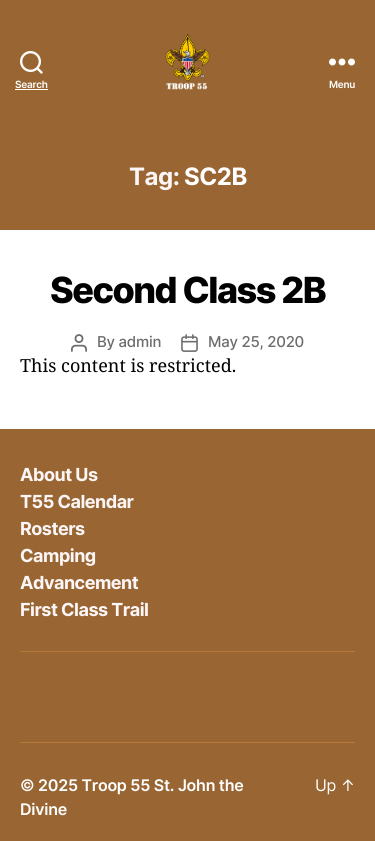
import math
import cairocffi as cairo

surface = cairo.ImageSurface(cairo.FORMAT_RGB24, 375, 841)
ctx = cairo.Context(surface)
options = cairo.FontOptions()
options.set_hint_metrics(cairo.HINT_METRICS_OFF)
options.set_hint_style(cairo.HINT_STYLE_NONE)
ctx.set_font_options(options)
ctx.set_miter_limit(4)


def rgb(r, g, b):
    ctx.set_source_rgb(r / 255, g / 255, b / 255)


def face(family, size, italic, bold):
    ctx.select_font_face(family, cairo.FONT_SLANT_ITALIC if italic else cairo.FONT_SLANT_NORMAL, cairo.FONT_WEIGHT_BOLD if bold else cairo.FONT_WEIGHT_NORMAL)
    ctx.set_font_size(size)


def label(x, y, s):
    ctx.move_to(x, y)
    ctx.show_text(s)


def tracked(x, y, s, letter, word):
    ctx.move_to(x, y)
    for ch in s:
        ctx.show_text(ch)
        ctx.rel_move_to(letter + word * (ch == ' '), 0)


def rect(x, y, w, h):
    ctx.rectangle(x, y, w, h)
    ctx.fill()


def image(path, x, y, w, h):
    ctx.save()
    ctx.set_source_surface(cairo.ImageSurface.create_from_png(path), x, y)
    ctx.rectangle(x, y, w, h)
    ctx.fill()
    ctx.restore()


rgb(255, 255, 255)
ctx.paint()
rgb(153, 102, 51)
rect(0, 0, 375, 230)
image('image0.png', 20, 51, 23, 23)
face('Inter SemiBold', 10, 0, 0)
rgb(255, 255, 255)
tracked(15, 88, 'Search', -0.25, 0)
rect(15, 89, 33, 1)
image('image1.png', 165, 34, 45, 56)
image('image2.png', 329, 58, 26, 8)
tracked(329, 88, 'Menu', -0.25, 0)
face('Inter', 24, 0, 1)
rgb(253, 246, 247)
tracked(129, 185, 'Tag:', -0.5, 0)
rgb(255, 255, 255)
tracked(184, 185, 'SC2B', -0.5, 0)
face('Inter ExtraBold', 36, 0, 0)
rgb(0, 0, 0)
tracked(50, 303, 'Second Class 2B', -1.5, 0)
image('image3.png', 71, 334, 16, 18)
face('Inter Medium', 15, 0, 0)
rgb(109, 109, 109)
tracked(97, 347, 'By admin', -0.25, 0)
image('image4.png', 181, 334, 17, 18)
tracked(208, 347, 'May 25, 2020', -0.25, 0)
face('Noto Serif', 18, 0, 0)
rgb(0, 0, 0)
label(20, 372, 'This content is restricted.')
rgb(153, 102, 51)
rect(0, 429, 375, 412)
rgb(183, 122, 61)
rect(20, 651, 335, 1)
face('Inter', 18, 0, 1)
rgb(253, 246, 247)
tracked(20, 481, 'About Us', -0.5, 0)
tracked(20, 508, 'T55 Calendar', -0.5, 0)
tracked(20, 535, 'Rosters', -0.5, 0)
tracked(20, 562, 'Camping', -0.5, 0)
tracked(20, 589, 'Advancement', -0.5, 0)
tracked(20, 616, 'First Class Trail', -0.5, 0)
rgb(183, 122, 61)
rect(20, 742, 335, 1)
face('Inter SemiBold', 16, 0, 0)
rgb(255, 255, 255)
tracked(20, 791, '© 2025 Troop 55 St. John the', -0.25, 0)
tracked(20, 815, 'Divine', -0.25, 0)
face('Inter', 16, 0, 0)
tracked(315, 791, 'Up ↑', -0.25, 0)
surface.write_to_png('render.png')
